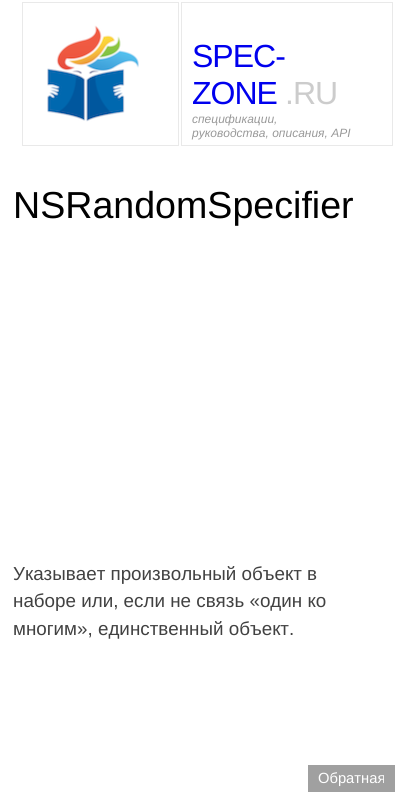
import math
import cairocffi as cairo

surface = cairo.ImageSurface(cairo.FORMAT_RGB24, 395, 797)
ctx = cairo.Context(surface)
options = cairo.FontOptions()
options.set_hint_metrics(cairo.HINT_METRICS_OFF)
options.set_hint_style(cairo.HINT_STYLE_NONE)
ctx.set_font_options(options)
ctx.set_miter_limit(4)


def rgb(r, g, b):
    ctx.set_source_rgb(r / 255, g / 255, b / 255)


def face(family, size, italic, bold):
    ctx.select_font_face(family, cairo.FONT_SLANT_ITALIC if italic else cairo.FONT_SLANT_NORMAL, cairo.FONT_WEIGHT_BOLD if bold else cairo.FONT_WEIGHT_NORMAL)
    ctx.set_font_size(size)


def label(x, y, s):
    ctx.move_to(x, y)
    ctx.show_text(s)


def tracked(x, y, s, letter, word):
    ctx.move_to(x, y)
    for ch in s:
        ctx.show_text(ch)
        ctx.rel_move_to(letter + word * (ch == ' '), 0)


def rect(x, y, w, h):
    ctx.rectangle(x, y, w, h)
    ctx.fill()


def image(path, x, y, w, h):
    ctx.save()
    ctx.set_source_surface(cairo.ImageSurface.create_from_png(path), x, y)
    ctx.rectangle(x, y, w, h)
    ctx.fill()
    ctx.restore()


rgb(255, 255, 255)
ctx.paint()
ctx.rectangle(22.5, 2.5, 156, 143)
rgb(233, 233, 233)
ctx.set_line_width(1)
ctx.stroke()
image('image0.png', 47, 25, 92, 97)
ctx.rectangle(181.5, 2.5, 211, 143)
ctx.stroke()
face('Liberation Sans', 32, 0, 0)
rgb(0, 0, 238)
tracked(192, 67, 'SPEC-', -1, 0)
tracked(192, 104, 'ZONE', -1, 0)
rgb(204, 204, 204)
tracked(285, 104, '.RU', -1, 0)
face('Liberation Sans', 12, 1, 0)
rgb(153, 153, 153)
label(192, 123, 'спецификации,')
label(192, 137, 'руководства, описания, API')
face('Liberation Sans', 37.6, 0, 0)
rgb(0, 0, 0)
label(13, 218, 'NSRandomSpecifier')
face('Liberation Sans', 18.8, 0, 0)
rgb(65, 65, 65)
label(13, 580, 'Указывает произвольный объект в')
label(13, 607, 'наборе или, если не связь «один ко')
label(13, 635, 'многим», единственный объект.')
rgb(160, 160, 160)
rect(308, 765, 87, 27)
face('Liberation Sans', 14.75, 0, 0)
rgb(255, 255, 255)
label(318, 783, 'Обратная')
surface.write_to_png('render.png')
